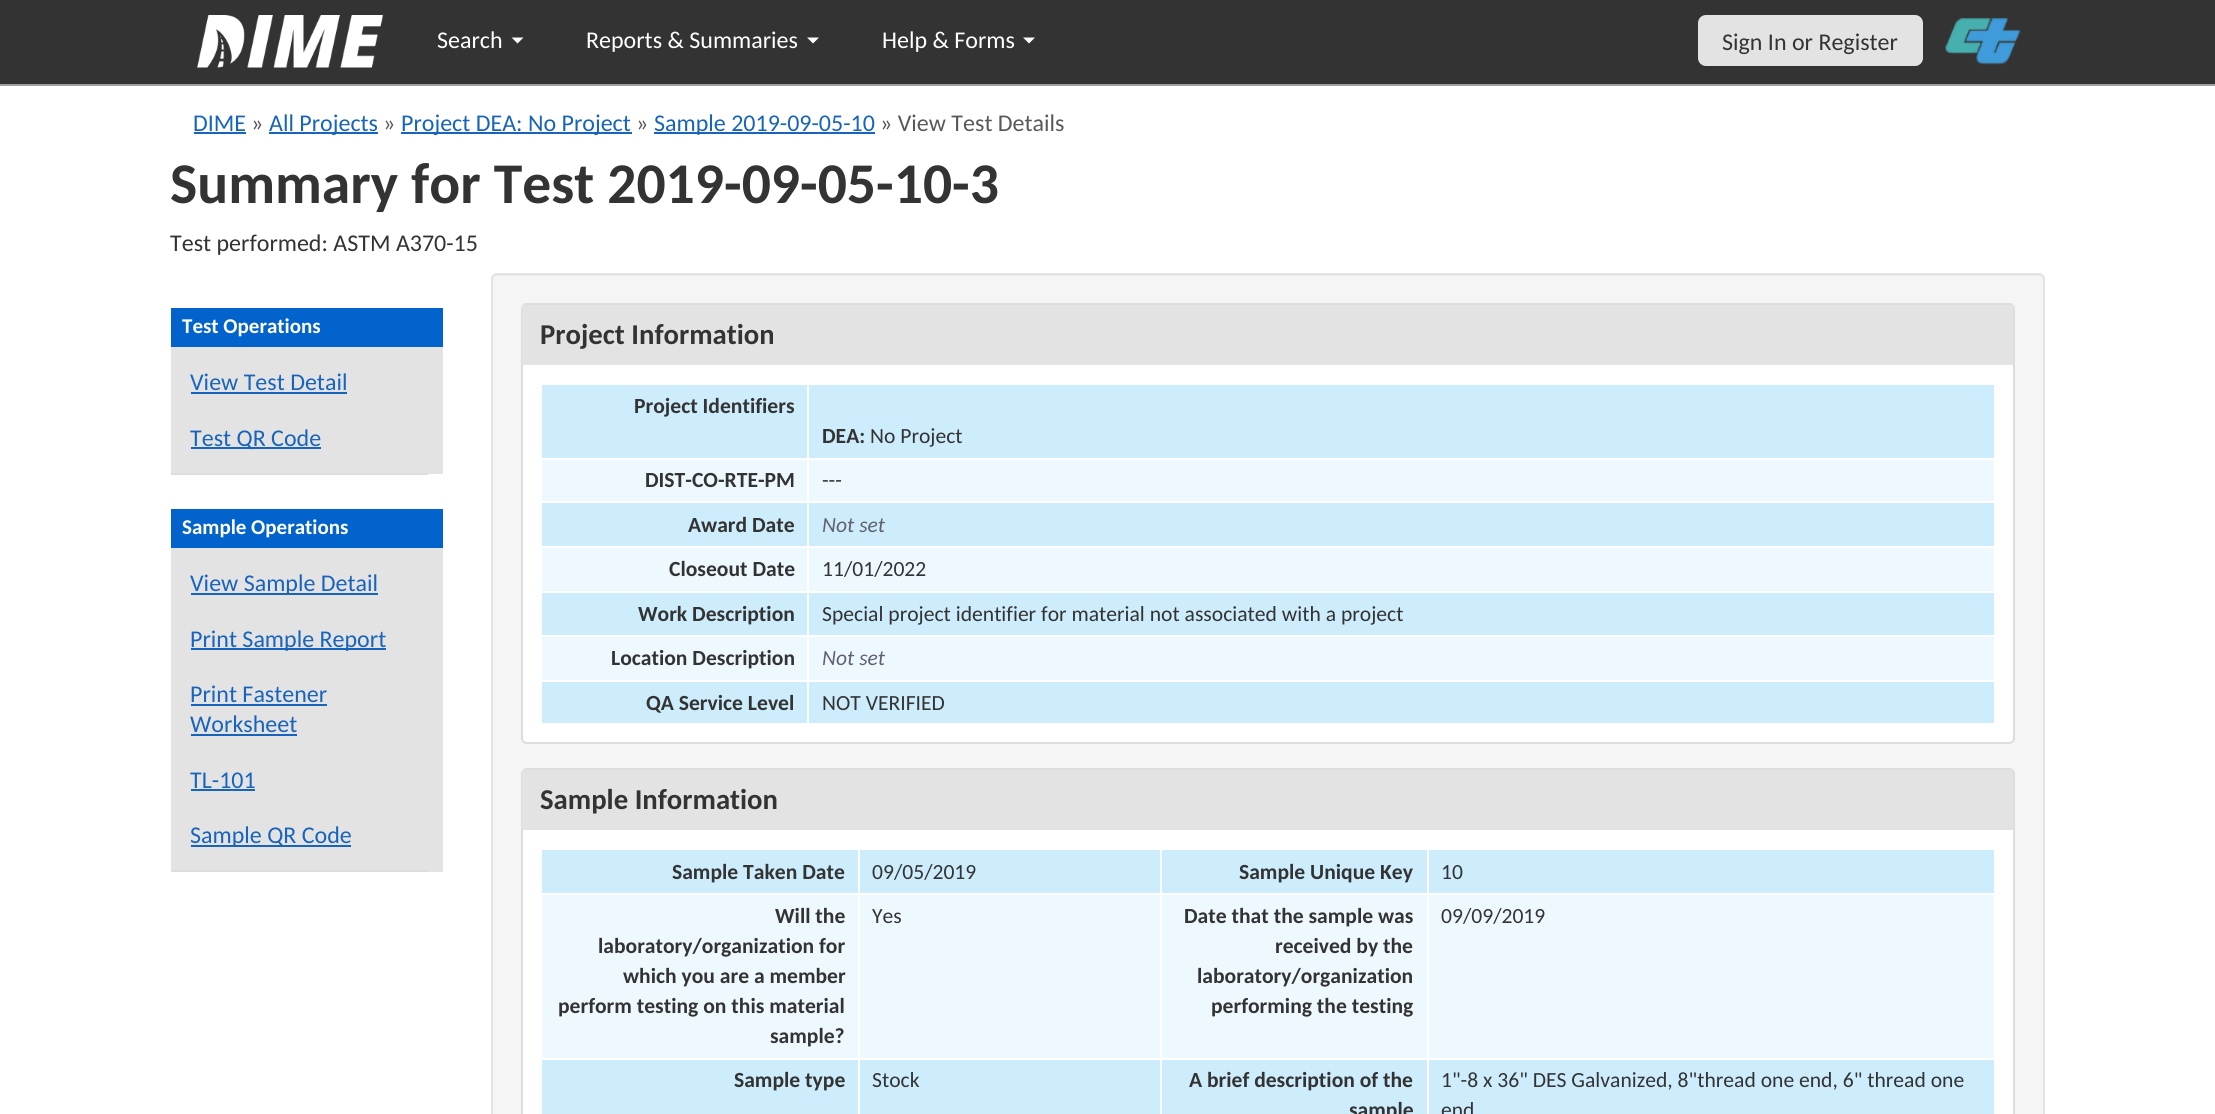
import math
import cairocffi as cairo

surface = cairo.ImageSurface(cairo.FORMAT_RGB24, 2215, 1114)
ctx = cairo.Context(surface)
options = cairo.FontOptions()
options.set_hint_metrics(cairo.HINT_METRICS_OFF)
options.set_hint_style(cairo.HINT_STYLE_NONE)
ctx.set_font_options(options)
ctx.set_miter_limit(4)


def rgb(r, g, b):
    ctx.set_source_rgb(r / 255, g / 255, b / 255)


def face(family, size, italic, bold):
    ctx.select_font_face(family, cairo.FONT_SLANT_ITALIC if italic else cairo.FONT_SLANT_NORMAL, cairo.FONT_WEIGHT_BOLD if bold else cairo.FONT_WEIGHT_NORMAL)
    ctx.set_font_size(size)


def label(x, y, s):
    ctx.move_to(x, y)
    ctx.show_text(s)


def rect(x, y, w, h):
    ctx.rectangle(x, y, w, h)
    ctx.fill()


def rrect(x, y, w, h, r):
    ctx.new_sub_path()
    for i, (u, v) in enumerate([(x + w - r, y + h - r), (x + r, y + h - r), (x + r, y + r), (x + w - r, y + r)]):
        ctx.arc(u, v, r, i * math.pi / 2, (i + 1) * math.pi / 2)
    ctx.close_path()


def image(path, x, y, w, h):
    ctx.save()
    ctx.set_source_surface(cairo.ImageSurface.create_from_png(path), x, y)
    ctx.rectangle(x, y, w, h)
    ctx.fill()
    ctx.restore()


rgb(255, 255, 255)
ctx.paint()
rgb(51, 51, 51)
rect(0, 0, 2215, 84)
rgb(160, 160, 160)
rect(0, 84, 2215, 2)
image('image0.png', 197, 15, 187, 53)
face('Carlito', 24, 0, 0)
rgb(255, 255, 255)
label(437, 48, 'Search')
ctx.new_path()
ctx.move_to(511.5, 37.5)
ctx.line_to(523.5, 37.5)
ctx.line_to(517.5, 43.5)
ctx.close_path()
ctx.fill()
label(586, 48, 'Reports & Summaries')
ctx.new_path()
ctx.move_to(807, 37.5)
ctx.line_to(819, 37.5)
ctx.line_to(813, 43.5)
ctx.close_path()
ctx.fill()
label(882, 48, 'Help & Forms')
ctx.new_path()
ctx.move_to(1023, 37.5)
ctx.line_to(1035, 37.5)
ctx.line_to(1029, 43.5)
ctx.close_path()
ctx.fill()
rgb(227, 227, 227)
rrect(1698, 15, 225, 51, 8)
ctx.fill()
rgb(51, 51, 51)
label(1722, 50, 'Sign In or Register')
image('image1.png', 1945, 18, 76, 47)
rgb(24, 100, 187)
label(193, 131, 'DIME')
rect(194, 132, 52, 2)
rgb(89, 89, 89)
label(251, 131, '»')
rgb(24, 100, 187)
rect(269, 132, 109, 2)
label(269, 131, 'All Projects')
rgb(89, 89, 89)
label(383, 131, '»')
rgb(24, 100, 187)
rect(401, 132, 231, 2)
label(401, 131, 'Project DEA: No Project')
rgb(89, 89, 89)
label(636, 131, '»')
rgb(24, 100, 187)
rect(654, 132, 221, 2)
label(654, 131, 'Sample 2019-09-05-10')
rgb(89, 89, 89)
label(880, 131, '» View Test Details')
face('Carlito', 57.6, 0, 1)
rgb(51, 51, 51)
label(170, 203, 'Summary for Test 2019-09-05-10-3')
face('Carlito', 24, 0, 0)
label(170, 251, 'Test performed: ASTM A370-15')
rgb(2, 99, 204)
rect(171, 308, 272, 39)
face('Carlito', 21, 0, 1)
rgb(255, 255, 255)
label(182, 333, 'Test Operations')
rgb(227, 227, 227)
rect(171, 347, 272, 127)
rgb(221, 221, 221)
rect(171, 473, 257, 2)
face('Carlito', 24, 0, 0)
rgb(24, 100, 187)
label(190, 390, 'View Test Detail')
rect(191, 392, 156, 2)
rect(191, 447, 130, 2)
label(190, 446, 'Test QR Code')
rgb(2, 99, 204)
rect(171, 509, 272, 39)
face('Carlito', 21, 0, 1)
rgb(255, 255, 255)
label(182, 534, 'Sample Operations')
rgb(227, 227, 227)
rect(171, 548, 272, 324)
rgb(221, 221, 221)
rect(171, 870, 257, 2)
rgb(24, 100, 187)
rect(191, 593, 187, 2)
face('Carlito', 24, 0, 0)
label(190, 591, 'View Sample Detail')
rect(191, 648, 195, 2)
label(190, 647, 'Print Sample Report')
label(190, 702, 'Print Fastener')
rect(191, 704, 136, 2)
label(190, 732, 'Worksheet')
rect(191, 734, 106, 2)
label(190, 788, 'TL-101')
rect(191, 789, 64, 2)
rect(191, 845, 160, 2)
label(190, 843, 'Sample QR Code')
rgb(245, 245, 245)
rrect(491, 273, 1554, 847, 6)
ctx.fill()
rgb(233, 233, 233)
ctx.new_path()
ctx.move_to(496, 276)
ctx.line_to(2038, 276)
ctx.curve_to(2041, 276, 2043, 278, 2043, 280)
ctx.curve_to(2043, 277, 2041, 275, 2038, 275)
ctx.line_to(497, 275)
ctx.curve_to(494, 275, 492, 277, 492, 280)
ctx.curve_to(492, 278, 494, 276, 496, 276)
ctx.close_path()
ctx.fill()
rrect(492, 274, 1552, 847, 5)
rgb(227, 227, 227)
ctx.stroke()
rgb(255, 255, 255)
rrect(522, 304, 1492, 439, 5)
ctx.fill_preserve()
rgb(221, 221, 221)
ctx.stroke()
rgb(227, 227, 227)
rect(522, 305, 1491, 60)
face('Carlito', 28.75, 0, 1)
rgb(51, 51, 51)
label(540, 344, 'Project Information')
rgb(205, 236, 252)
rect(542, 385, 1452, 73)
face('Carlito', 21.6, 0, 1)
rgb(51, 51, 51)
label(634, 413, 'Project Identifiers')
label(822, 443, 'DEA:')
face('Carlito', 21.6, 0, 0)
label(870, 443, 'No Project')
rgb(238, 249, 255)
rect(542, 460, 1452, 41)
face('Carlito', 21.6, 0, 1)
rgb(51, 51, 51)
label(645, 487, 'DIST-CO-RTE-PM')
face('Carlito', 21.6, 0, 0)
label(822, 487, '---')
rgb(205, 236, 252)
rect(542, 503, 1452, 43)
face('Carlito', 21.6, 0, 1)
rgb(51, 51, 51)
label(688, 532, 'Award Date')
face('Carlito', 21.6, 1, 0)
rgb(97, 97, 111)
label(822, 532, 'Not set')
rgb(238, 249, 255)
rect(542, 548, 1452, 43)
face('Carlito', 21.6, 0, 1)
rgb(51, 51, 51)
label(669, 576, 'Closeout Date')
face('Carlito', 21.6, 0, 0)
label(822, 576, '11/01/2022')
rgb(205, 236, 252)
rect(542, 593, 1452, 42)
face('Carlito', 21.6, 0, 1)
rgb(51, 51, 51)
label(638, 621, 'Work Description')
face('Carlito', 21.6, 0, 0)
label(822, 621, 'Special project identifier for material not associated with a project')
rgb(238, 249, 255)
rect(542, 637, 1452, 43)
face('Carlito', 21.6, 0, 1)
rgb(51, 51, 51)
label(611, 665, 'Location Description')
face('Carlito', 21.6, 1, 0)
rgb(97, 97, 111)
label(822, 665, 'Not set')
rgb(205, 236, 252)
rect(542, 682, 1452, 41)
face('Carlito', 21.6, 0, 1)
rgb(51, 51, 51)
label(646, 710, 'QA Service Level')
rgb(255, 255, 255)
rect(807, 383, 2, 342)
face('Carlito', 21.6, 0, 0)
rgb(51, 51, 51)
label(822, 710, 'NOT VERIFIED')
rgb(255, 255, 255)
rrect(522, 769, 1492, 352, 5)
ctx.fill_preserve()
rgb(221, 221, 221)
ctx.stroke()
rgb(227, 227, 227)
rect(522, 770, 1491, 60)
face('Carlito', 28.75, 0, 1)
rgb(51, 51, 51)
label(540, 809, 'Sample Information')
rgb(205, 236, 252)
rect(542, 850, 1452, 43)
face('Carlito', 21.6, 0, 1)
rgb(51, 51, 51)
label(672, 879, 'Sample Taken Date')
face('Carlito', 21.6, 0, 0)
label(872, 879, '09/05/2019')
face('Carlito', 21.6, 0, 1)
label(1239, 879, 'Sample Unique Key')
face('Carlito', 21.6, 0, 0)
label(1441, 879, '10')
rgb(238, 249, 255)
rect(542, 895, 1452, 163)
face('Carlito', 21.6, 0, 1)
rgb(51, 51, 51)
label(775, 923, 'Will the')
label(598, 953, 'laboratory/organization for')
label(623, 983, 'which you are a member')
label(558, 1013, 'perform testing on this material')
label(770, 1043, 'sample?')
face('Carlito', 21.6, 0, 0)
label(872, 923, 'Yes')
face('Carlito', 21.6, 0, 1)
label(1184, 923, 'Date that the sample was')
label(1275, 953, 'received by the')
label(1197, 983, 'laboratory/organization')
label(1211, 1013, 'performing the testing')
face('Carlito', 21.6, 0, 0)
label(1441, 923, '09/09/2019')
rgb(205, 236, 252)
rect(542, 1060, 1452, 54)
face('Carlito', 21.6, 0, 1)
rgb(51, 51, 51)
label(734, 1087, 'Sample type')
rgb(255, 255, 255)
rect(858, 848, 2, 266)
face('Carlito', 21.6, 0, 0)
rgb(51, 51, 51)
label(872, 1087, 'Stock')
rgb(255, 255, 255)
rect(1160, 848, 2, 266)
face('Carlito', 21.6, 0, 1)
rgb(51, 51, 51)
label(1189, 1087, 'A brief description of the')
label(1349, 1117, 'sample')
rgb(255, 255, 255)
rect(1427, 848, 2, 266)
face('Carlito', 21.6, 0, 0)
rgb(51, 51, 51)
label(1441, 1087, '1"-8 x 36" DES Galvanized, 8"thread one end, 6" thread one')
label(1441, 1117, 'end')
surface.write_to_png('render.png')
